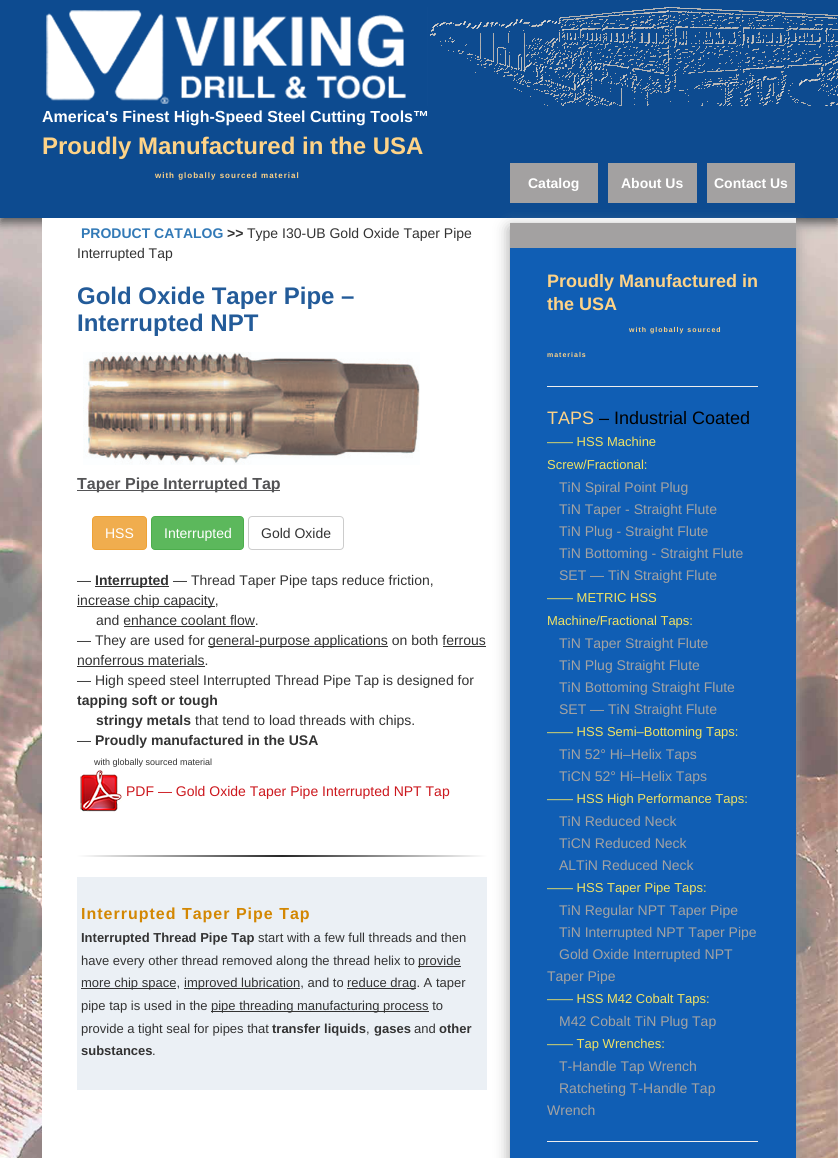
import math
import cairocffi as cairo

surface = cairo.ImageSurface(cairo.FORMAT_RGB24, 838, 1158)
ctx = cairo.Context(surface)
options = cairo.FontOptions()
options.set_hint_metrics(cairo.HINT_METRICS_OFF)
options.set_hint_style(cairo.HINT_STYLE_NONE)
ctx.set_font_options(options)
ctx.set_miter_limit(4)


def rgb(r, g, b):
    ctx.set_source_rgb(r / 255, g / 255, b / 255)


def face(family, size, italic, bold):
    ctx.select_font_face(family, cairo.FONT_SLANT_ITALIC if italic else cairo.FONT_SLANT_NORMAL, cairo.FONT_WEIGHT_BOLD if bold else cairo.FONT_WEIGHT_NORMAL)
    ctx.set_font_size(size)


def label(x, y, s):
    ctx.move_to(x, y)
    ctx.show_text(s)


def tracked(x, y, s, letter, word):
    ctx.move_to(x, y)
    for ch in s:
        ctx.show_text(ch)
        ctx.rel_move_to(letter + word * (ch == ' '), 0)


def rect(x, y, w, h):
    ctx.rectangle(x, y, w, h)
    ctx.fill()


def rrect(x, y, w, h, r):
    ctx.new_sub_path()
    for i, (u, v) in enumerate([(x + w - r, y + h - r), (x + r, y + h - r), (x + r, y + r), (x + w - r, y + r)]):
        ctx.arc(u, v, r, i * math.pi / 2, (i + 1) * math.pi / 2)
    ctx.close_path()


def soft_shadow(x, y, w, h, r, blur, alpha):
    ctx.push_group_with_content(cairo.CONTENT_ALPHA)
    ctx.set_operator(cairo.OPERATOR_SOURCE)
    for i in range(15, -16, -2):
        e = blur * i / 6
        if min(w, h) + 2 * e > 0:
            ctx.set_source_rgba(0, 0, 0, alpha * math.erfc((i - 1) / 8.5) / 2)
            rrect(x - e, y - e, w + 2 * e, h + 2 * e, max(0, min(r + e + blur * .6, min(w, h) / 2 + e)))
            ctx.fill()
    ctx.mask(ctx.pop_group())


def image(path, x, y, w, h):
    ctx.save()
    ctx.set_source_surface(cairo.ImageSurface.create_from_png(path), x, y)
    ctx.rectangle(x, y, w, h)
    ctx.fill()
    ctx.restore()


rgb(255, 255, 255)
ctx.paint()
image('image0.png', 0, 218, 838, 940)
rgb(92, 92, 92)
soft_shadow(0, 5, 838, 218, 0, 5, 1)
rgb(13, 75, 144)
rect(0, 0, 838, 218)
image('image1.png', 46, 7, 792, 99)
face('Liberation Sans', 16, 0, 1)
rgb(255, 255, 255)
label(42, 122, 'America\'s Finest High-Speed Steel Cutting Tools™')
face('Liberation Sans', 24, 0, 1)
rgb(254, 211, 135)
label(42, 154, 'Proudly Manufactured in the USA')
face('Liberation Sans', 8, 0, 1)
tracked(155, 178, 'with globally sourced material', 1, 0)
rgb(163, 161, 161)
rect(510, 163, 88, 40)
face('Liberation Sans', 14, 0, 1)
rgb(255, 255, 255)
label(528, 188, 'Catalog')
rgb(163, 161, 161)
rect(608, 163, 89, 40)
rgb(255, 255, 255)
label(621, 188, 'About Us')
rgb(163, 161, 161)
rect(707, 163, 88, 40)
rgb(255, 255, 255)
label(714, 188, 'Contact Us')
rect(42, 218, 754, 940)
rgb(51, 122, 183)
label(81, 238, 'PRODUCT CATALOG')
rgb(51, 51, 51)
label(227, 238, '>>')
face('Liberation Sans', 14, 0, 0)
label(247, 238, 'Type I30-UB Gold Oxide Taper Pipe')
label(77, 258, 'Interrupted Tap')
face('Liberation Sans', 24, 0, 1)
rgb(35, 91, 153)
label(77, 304, 'Gold Oxide Taper Pipe –')
label(77, 331, 'Interrupted NPT')
image('image2.png', 83, 352, 337, 113)
rgb(84, 84, 86)
rect(77, 490, 203, 1)
face('Liberation Sans', 16, 0, 1)
label(77, 489, 'Taper Pipe Interrupted Tap')
rgb(240, 173, 78)
rrect(92.5, 516.5, 54, 33, 3.5)
ctx.fill_preserve()
rgb(238, 162, 54)
ctx.set_line_width(1)
ctx.stroke()
face('Liberation Sans', 14, 0, 0)
rgb(255, 255, 255)
label(105, 538, 'HSS')
rgb(92, 184, 92)
rrect(151.5, 516.5, 92, 33, 3.5)
ctx.fill_preserve()
rgb(76, 174, 76)
ctx.stroke()
rgb(255, 255, 255)
label(164, 538, 'Interrupted')
rrect(248.5, 516.5, 95, 33, 3.5)
rgb(204, 204, 204)
ctx.stroke()
rgb(51, 51, 51)
label(261, 538, 'Gold Oxide')
label(77, 585, '—')
rect(95, 586, 74, 1)
face('Liberation Sans', 14, 0, 1)
label(95, 585, 'Interrupted')
face('Liberation Sans', 14, 0, 0)
label(173, 585, '— Thread Taper Pipe taps reduce friction,')
rect(77, 606, 138, 1)
label(77, 605, 'increase chip capacity,')
label(96, 625, 'and enhance coolant flow.')
rect(124, 626, 131, 1)
label(77, 645, '— They are used for')
rect(208, 646, 180, 1)
label(208, 645, 'general-purpose applications on both ferrous')
label(77, 665, 'nonferrous materials.')
rect(443, 646, 43, 1)
rect(77, 666, 128, 1)
label(77, 685, '— High speed steel Interrupted Thread Pipe Tap is designed for')
face('Liberation Sans', 14, 0, 1)
label(77, 705, 'tapping soft or tough')
label(96, 725, 'stringy metals')
face('Liberation Sans', 14, 0, 0)
label(195, 725, 'that tend to load threads with chips.')
label(77, 745, '—')
face('Liberation Sans', 14, 0, 1)
label(95, 745, 'Proudly manufactured in the USA')
face('Liberation Sans', 9, 0, 0)
label(94, 765, 'with globally sourced material')
image('image3.png', 80, 770, 42, 42)
face('Liberation Sans', 14, 0, 0)
rgb(204, 24, 30)
label(126, 796, 'PDF — Gold Oxide Taper Pipe Interrupted NPT Tap')
rgb(235, 240, 245)
rect(77, 877, 410, 213)
rgb(157, 157, 157)
soft_shadow(510, 228, 286, 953, 0, 7.5, 1)
gradient = cairo.LinearGradient(77, 856, 487, 856)
gradient.add_color_stop_rgba(0, 1, 1, 1, 1)
gradient.add_color_stop_rgba(0.5, 0.149, 0.149, 0.149, 1)
gradient.add_color_stop_rgba(1, 1, 1, 1, 1)
ctx.set_source(gradient)
rect(77, 855, 410, 2)
face('Liberation Sans', 16, 0, 1)
rgb(211, 135, 2)
tracked(81, 919, 'Interrupted Taper Pipe Tap', 1, 0)
face('Liberation Sans', 13, 0, 1)
rgb(51, 51, 51)
label(81, 942, 'Interrupted Thread Pipe Tap')
face('Liberation Sans', 13, 0, 0)
label(258, 942, 'start with a few full threads and then')
label(81, 965, 'have every other thread removed along the thread helix to')
rect(418, 966, 43, 1)
label(418, 965, 'provide')
rect(81, 988, 95, 1)
label(81, 987, 'more chip space,')
rect(184, 988, 116, 1)
label(184, 987, 'improved lubrication, and to')
rect(347, 988, 69, 1)
label(347, 987, 'reduce drag. A taper')
label(81, 1010, 'pipe tap is used in the')
rect(211, 1011, 218, 1)
label(211, 1010, 'pipe threading manufacturing process to')
label(81, 1033, 'provide a tight seal for pipes that')
face('Liberation Sans', 13, 0, 1)
label(272, 1033, 'transfer liquids')
face('Liberation Sans', 13, 0, 0)
label(366, 1033, ',')
face('Liberation Sans', 13, 0, 1)
label(374, 1033, 'gases')
face('Liberation Sans', 13, 0, 0)
label(414, 1033, 'and')
face('Liberation Sans', 13, 0, 1)
label(439, 1033, 'other')
label(81, 1055, 'substances')
face('Liberation Sans', 13, 0, 0)
label(152, 1055, '.')
rgb(16, 94, 180)
rect(510, 248, 286, 910)
rgb(163, 161, 161)
rect(510, 223, 286, 25)
face('Liberation Sans', 18, 0, 1)
rgb(254, 211, 135)
label(547, 287, 'Proudly Manufactured in')
label(547, 310, 'the USA')
face('Liberation Sans', 7, 0, 1)
tracked(629, 332, 'with globally sourced', 1, 0)
tracked(547, 357, 'materials', 1, 0)
rgb(238, 238, 238)
rect(547, 386, 211, 1)
face('Liberation Sans', 18, 0, 0)
rgb(254, 211, 135)
label(547, 424, 'TAPS')
rgb(0, 0, 0)
label(599, 424, '– Industrial Coated')
face('Liberation Sans', 13, 0, 0)
rgb(238, 225, 101)
label(547, 446, '—— HSS Machine')
label(547, 469, 'Screw/Fractional:')
face('Liberation Sans', 14, 0, 0)
rgb(163, 163, 163)
label(559, 492, 'TiN Spiral Point Plug')
label(559, 514, 'TiN Taper - Straight Flute')
label(559, 536, 'TiN Plug - Straight Flute')
label(559, 558, 'TiN Bottoming - Straight Flute')
label(559, 580, 'SET — TiN Straight Flute')
face('Liberation Sans', 13, 0, 0)
rgb(238, 225, 101)
label(547, 602, '—— METRIC HSS')
label(547, 625, 'Machine/Fractional Taps:')
face('Liberation Sans', 14, 0, 0)
rgb(163, 163, 163)
label(559, 648, 'TiN Taper Straight Flute')
label(559, 670, 'TiN Plug Straight Flute')
label(559, 692, 'TiN Bottoming Straight Flute')
label(559, 714, 'SET — TiN Straight Flute')
face('Liberation Sans', 13, 0, 0)
rgb(238, 225, 101)
label(547, 736, '—— HSS Semi–Bottoming Taps:')
face('Liberation Sans', 14, 0, 0)
rgb(163, 163, 163)
label(559, 759, 'TiN 52° Hi–Helix Taps')
label(559, 781, 'TiCN 52° Hi–Helix Taps')
face('Liberation Sans', 13, 0, 0)
rgb(238, 225, 101)
label(547, 803, '—— HSS High Performance Taps:')
face('Liberation Sans', 14, 0, 0)
rgb(163, 163, 163)
label(559, 826, 'TiN Reduced Neck')
label(559, 848, 'TiCN Reduced Neck')
label(559, 870, 'ALTiN Reduced Neck')
face('Liberation Sans', 13, 0, 0)
rgb(238, 225, 101)
label(547, 892, '—— HSS Taper Pipe Taps:')
face('Liberation Sans', 14, 0, 0)
rgb(163, 163, 163)
label(559, 915, 'TiN Regular NPT Taper Pipe')
label(559, 937, 'TiN Interrupted NPT Taper Pipe')
label(559, 959, 'Gold Oxide Interrupted NPT')
label(547, 981, 'Taper Pipe')
face('Liberation Sans', 13, 0, 0)
rgb(238, 225, 101)
label(547, 1003, '—— HSS M42 Cobalt Taps:')
face('Liberation Sans', 14, 0, 0)
rgb(163, 163, 163)
label(559, 1026, 'M42 Cobalt TiN Plug Tap')
face('Liberation Sans', 13, 0, 0)
rgb(238, 225, 101)
label(547, 1048, '—— Tap Wrenches:')
face('Liberation Sans', 14, 0, 0)
rgb(163, 163, 163)
label(559, 1071, 'T-Handle Tap Wrench')
label(559, 1093, 'Ratcheting T-Handle Tap')
label(547, 1115, 'Wrench')
rgb(238, 238, 238)
rect(547, 1141, 211, 1)
surface.write_to_png('render.png')
